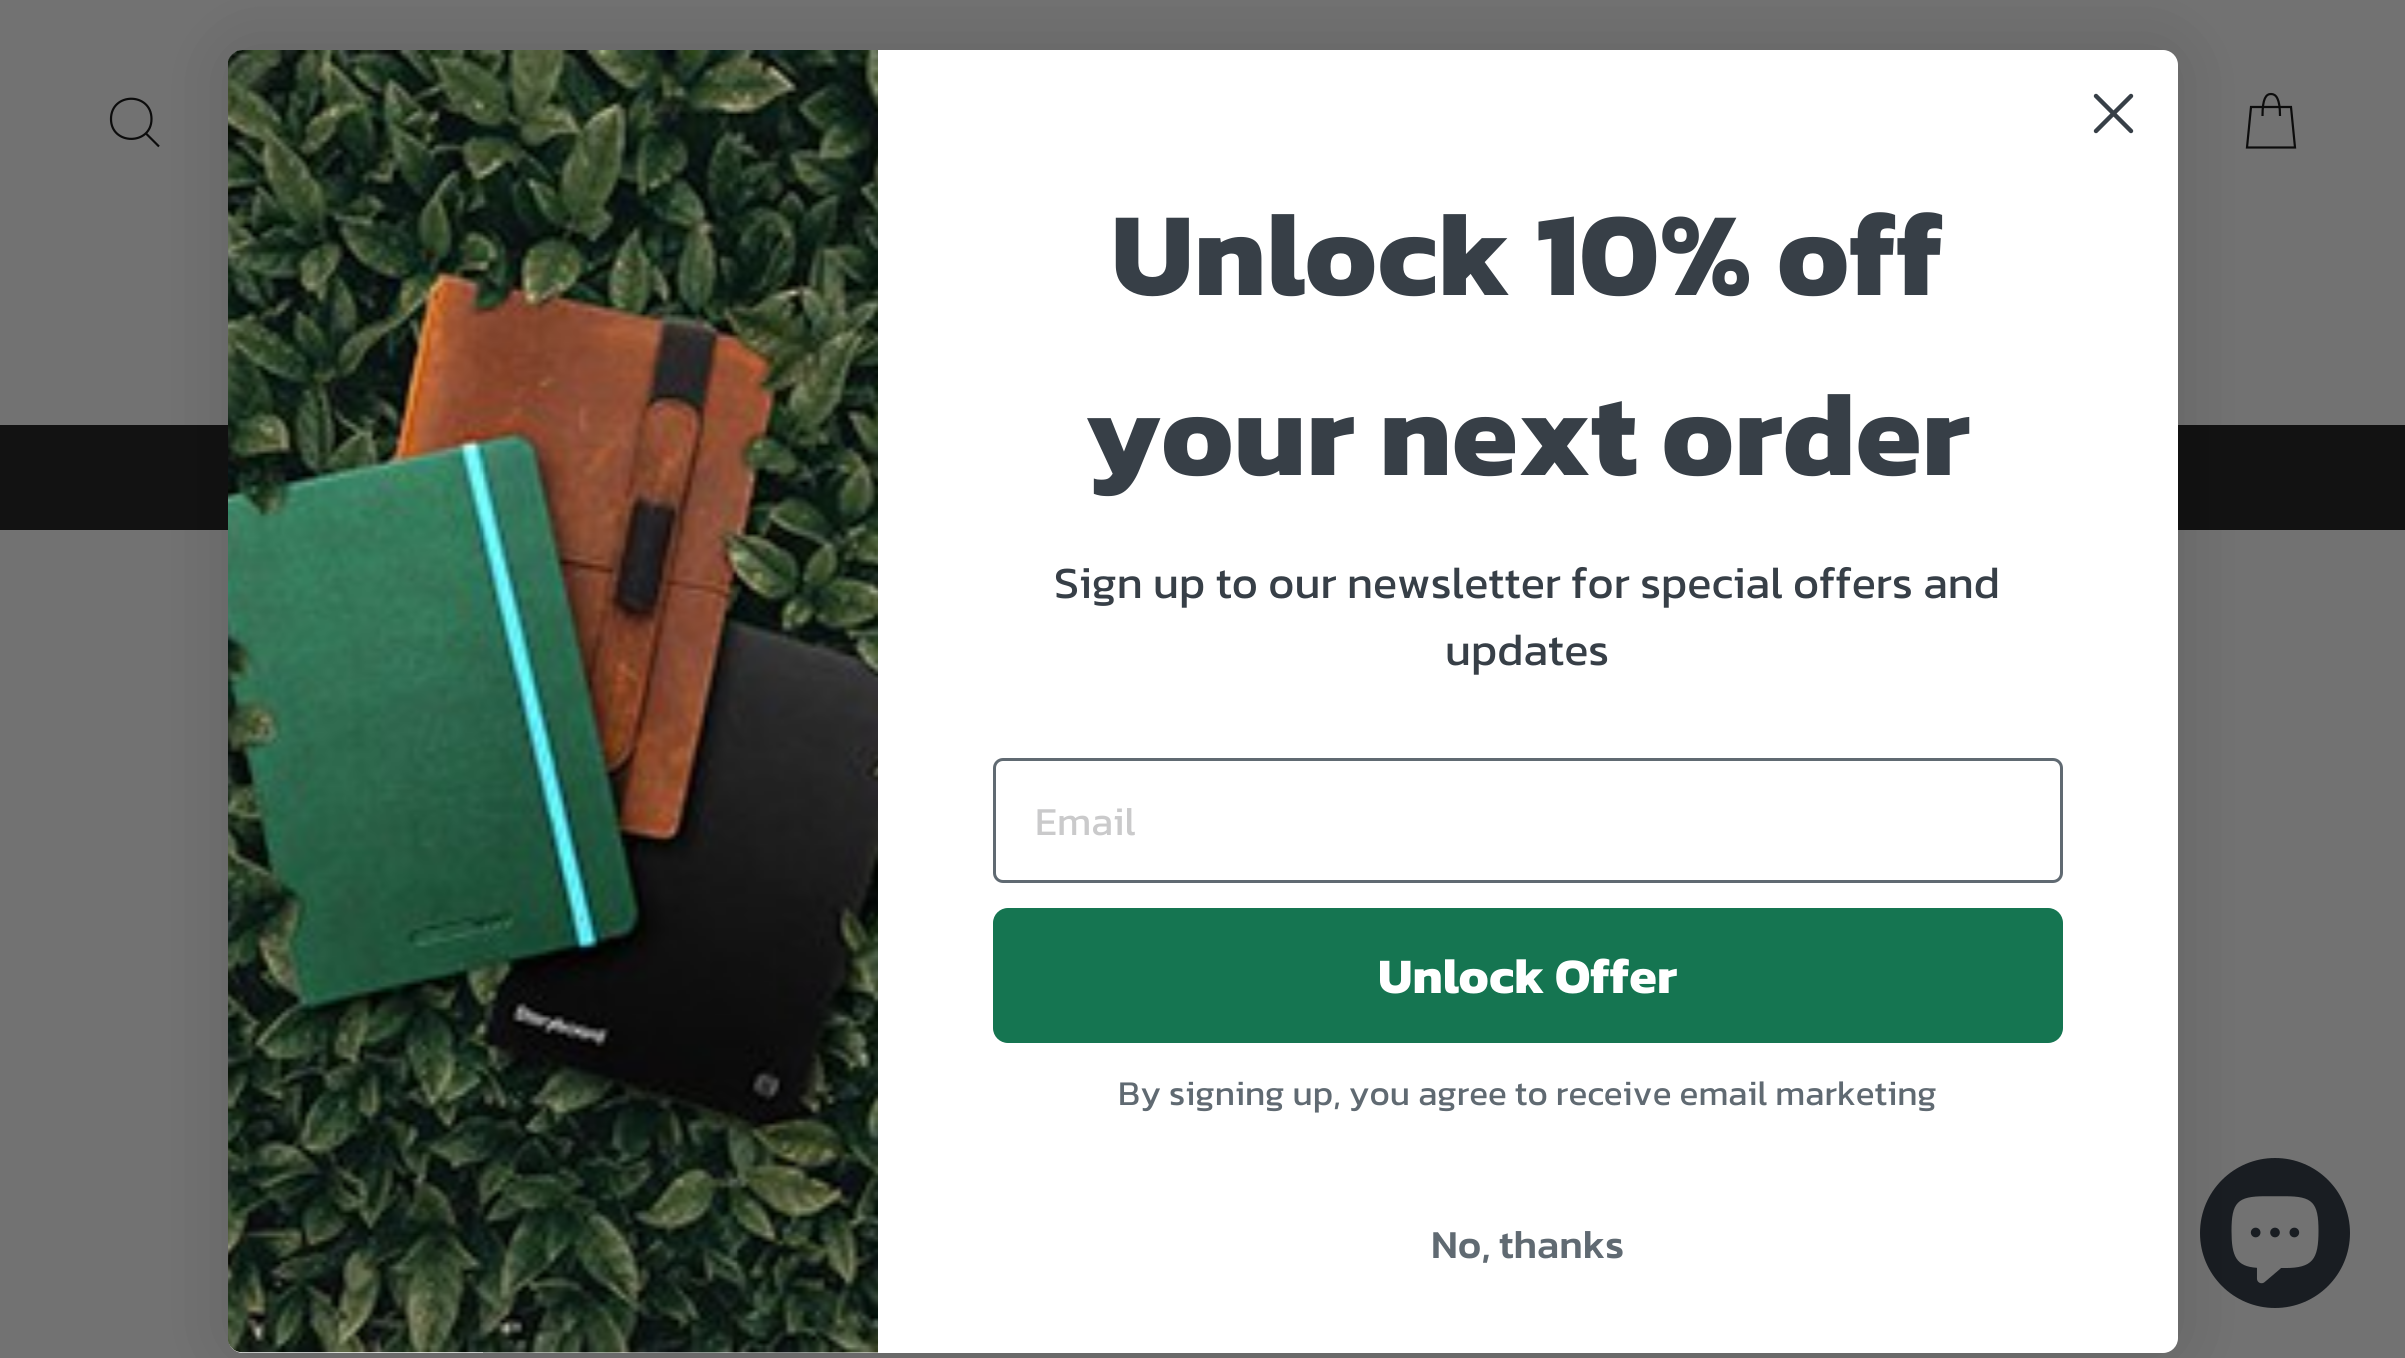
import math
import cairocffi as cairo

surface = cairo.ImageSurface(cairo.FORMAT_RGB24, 2405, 1358)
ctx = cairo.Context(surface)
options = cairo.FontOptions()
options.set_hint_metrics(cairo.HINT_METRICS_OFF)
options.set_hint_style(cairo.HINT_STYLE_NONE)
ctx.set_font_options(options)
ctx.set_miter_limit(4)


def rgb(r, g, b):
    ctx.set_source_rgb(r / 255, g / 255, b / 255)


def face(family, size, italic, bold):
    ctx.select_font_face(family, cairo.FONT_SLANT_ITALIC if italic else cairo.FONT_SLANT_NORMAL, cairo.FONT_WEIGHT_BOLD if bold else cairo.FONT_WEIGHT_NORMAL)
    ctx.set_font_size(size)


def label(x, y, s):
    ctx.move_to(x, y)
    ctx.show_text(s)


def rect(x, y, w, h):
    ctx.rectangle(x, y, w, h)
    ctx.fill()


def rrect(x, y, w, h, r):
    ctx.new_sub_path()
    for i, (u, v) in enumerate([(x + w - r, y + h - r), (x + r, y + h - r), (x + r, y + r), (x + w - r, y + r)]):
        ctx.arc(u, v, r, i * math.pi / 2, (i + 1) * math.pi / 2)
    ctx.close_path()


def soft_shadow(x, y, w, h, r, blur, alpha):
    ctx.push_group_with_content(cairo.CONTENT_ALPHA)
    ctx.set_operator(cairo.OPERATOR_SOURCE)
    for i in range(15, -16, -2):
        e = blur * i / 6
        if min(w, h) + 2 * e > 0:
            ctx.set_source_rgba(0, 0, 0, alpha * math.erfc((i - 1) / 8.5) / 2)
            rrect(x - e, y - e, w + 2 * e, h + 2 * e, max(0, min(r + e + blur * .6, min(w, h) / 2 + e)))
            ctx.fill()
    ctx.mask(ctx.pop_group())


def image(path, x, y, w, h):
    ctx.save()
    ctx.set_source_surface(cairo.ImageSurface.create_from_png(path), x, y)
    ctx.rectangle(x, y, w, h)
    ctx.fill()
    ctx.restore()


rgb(114, 114, 114)
ctx.paint()
ctx.new_path()
ctx.move_to(151.5, 119)
ctx.curve_to(151.5, 145.5, 111, 145.5, 111, 119)
ctx.curve_to(111, 92, 151.5, 92, 151.5, 119)
ctx.close_path()
ctx.move_to(159, 146.5)
ctx.line_to(146, 133.5)
rgb(12, 12, 12)
ctx.set_line_width(2.2)
ctx.stroke()
ctx.new_path()
ctx.move_to(2262.5, 116)
ctx.curve_to(2262.5, 98.5, 2266, 94, 2271, 94)
ctx.curve_to(2276, 94, 2280, 98.5, 2280, 116)
ctx.move_to(2251, 107)
ctx.line_to(2291, 107)
ctx.line_to(2295, 147.5)
ctx.line_to(2247, 147.5)
ctx.close_path()
ctx.stroke()
rgb(18, 18, 18)
rect(0, 425, 2405, 105)
rgb(25, 29, 34)
ctx.arc(2275, 1233, 75, 0, 2 * math.pi)
ctx.fill()
image('image1.png', 2231, 1196, 88, 88)
rgb(0, 0, 0)
soft_shadow(228, 50, 1950, 1303, 15, 37.5, 0.15)
rgb(255, 255, 255)
rrect(228, 50, 1950, 1303, 15)
ctx.fill()
ctx.new_path()
ctx.move_to(2096, 96)
ctx.line_to(2131, 131)
ctx.move_to(2096, 131)
ctx.line_to(2131, 96)
ctx.close_path()
rgb(55, 63, 71)
ctx.set_line_width(4.4)
ctx.set_line_cap(cairo.LINE_CAP_ROUND)
ctx.set_line_join(cairo.LINE_JOIN_ROUND)
ctx.stroke()
image('image0.png', 228, 50, 650, 1303)
face('Kanit', 120, 0, 1)
label(1111, 295, 'Unlock 10% off')
label(1084, 475, 'your next order')
face('Kanit', 45, 0, 0)
label(1054, 598, 'Sign up to our newsletter for special offers and')
label(1445, 665, 'updates')
rrect(994.5, 759.5, 1067, 122, 8.5)
rgb(96, 106, 114)
ctx.set_line_width(3)
ctx.set_line_cap(cairo.LINE_CAP_BUTT)
ctx.set_line_join(cairo.LINE_JOIN_MITER)
ctx.stroke()
face('Kanit', 40, 0, 0)
rgb(202, 202, 203)
label(1035, 835, 'Email')
rgb(21, 117, 81)
rrect(993, 908, 1070, 135, 15)
ctx.fill()
face('Kanit', 50, 0, 1)
rgb(255, 255, 255)
label(1378, 993, 'Unlock Offer')
face('Kanit', 35, 0, 0)
rgb(96, 106, 114)
label(1118, 1105, 'By signing up, you agree to receive email marketing')
face('Kanit Medium', 40, 0, 0)
label(1431, 1258, 'No, thanks')
surface.write_to_png('render.png')
